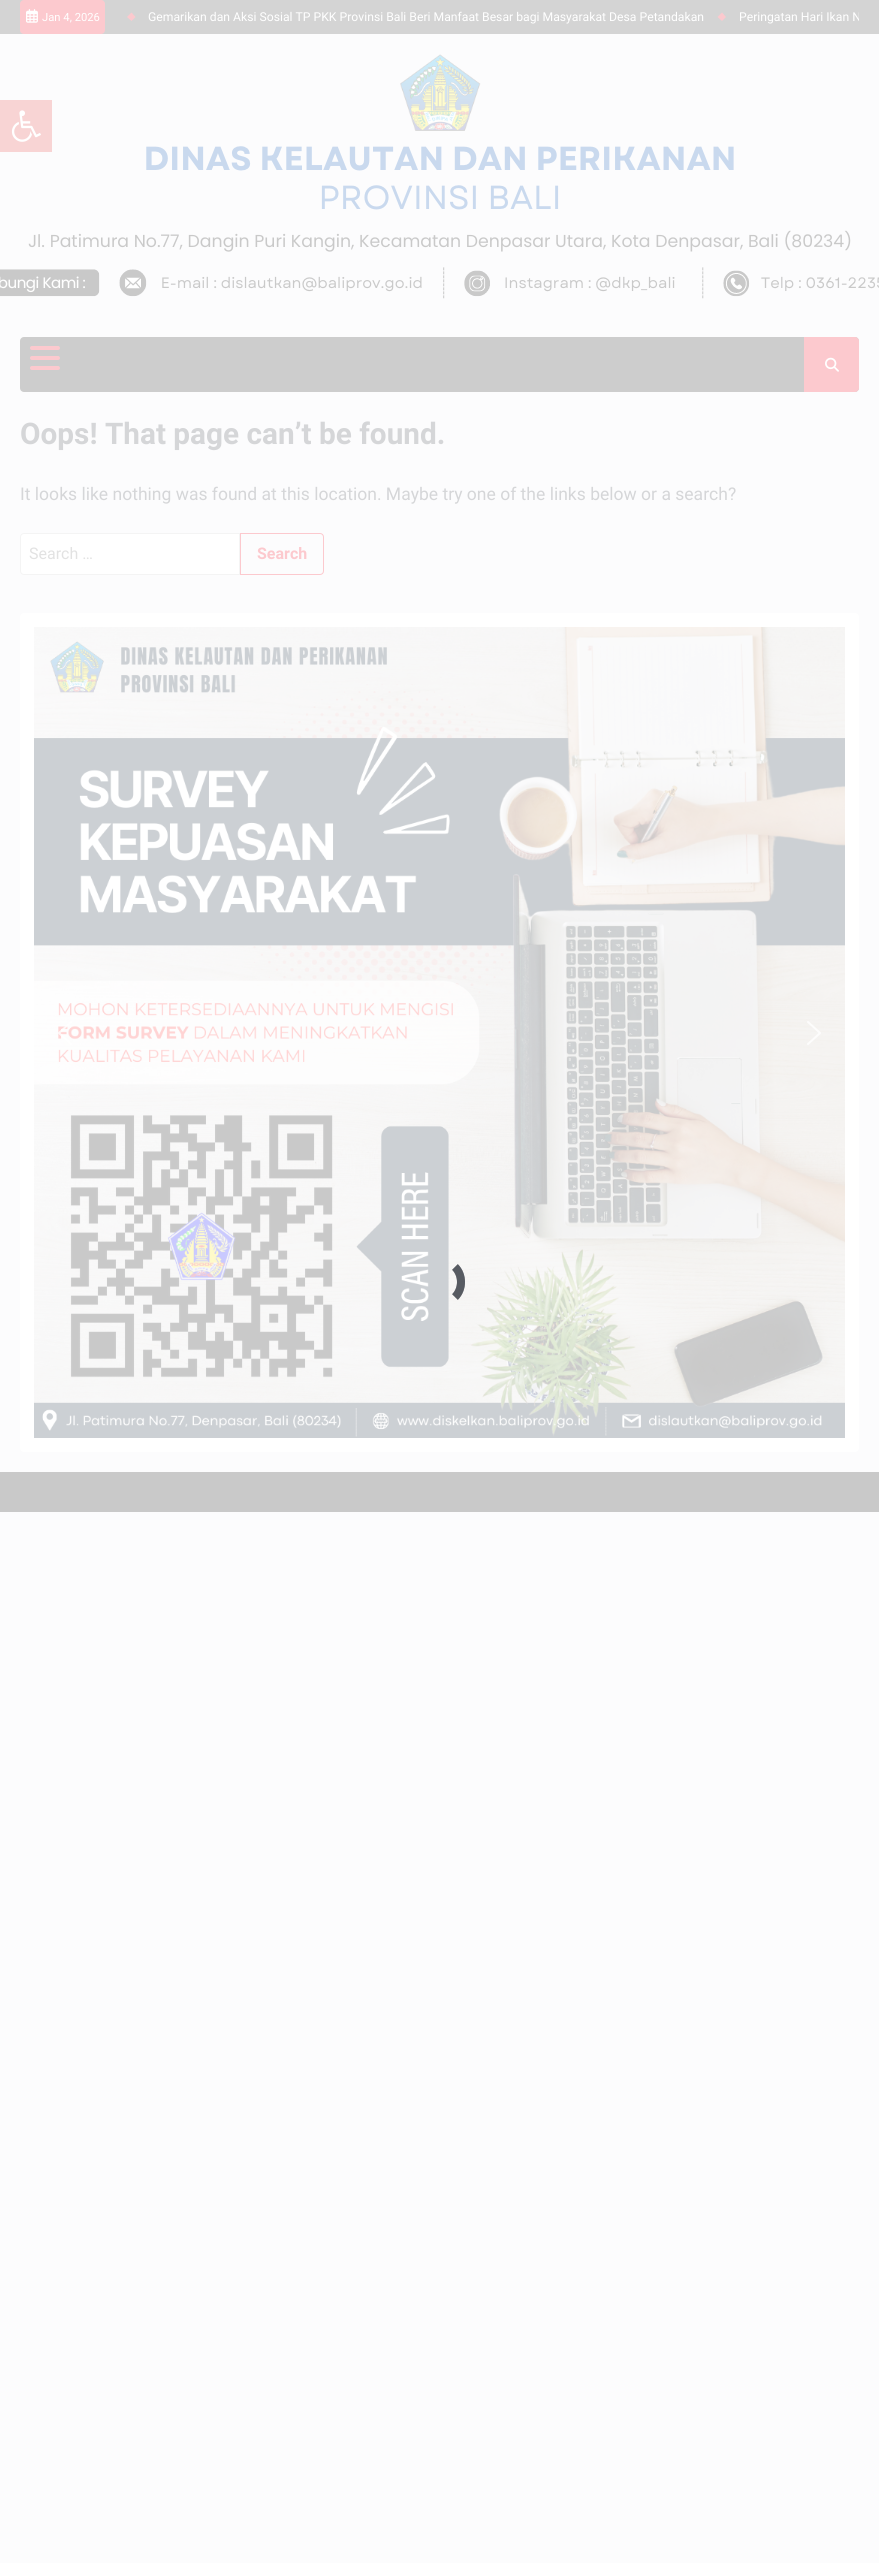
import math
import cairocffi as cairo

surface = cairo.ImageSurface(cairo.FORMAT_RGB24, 879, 2563)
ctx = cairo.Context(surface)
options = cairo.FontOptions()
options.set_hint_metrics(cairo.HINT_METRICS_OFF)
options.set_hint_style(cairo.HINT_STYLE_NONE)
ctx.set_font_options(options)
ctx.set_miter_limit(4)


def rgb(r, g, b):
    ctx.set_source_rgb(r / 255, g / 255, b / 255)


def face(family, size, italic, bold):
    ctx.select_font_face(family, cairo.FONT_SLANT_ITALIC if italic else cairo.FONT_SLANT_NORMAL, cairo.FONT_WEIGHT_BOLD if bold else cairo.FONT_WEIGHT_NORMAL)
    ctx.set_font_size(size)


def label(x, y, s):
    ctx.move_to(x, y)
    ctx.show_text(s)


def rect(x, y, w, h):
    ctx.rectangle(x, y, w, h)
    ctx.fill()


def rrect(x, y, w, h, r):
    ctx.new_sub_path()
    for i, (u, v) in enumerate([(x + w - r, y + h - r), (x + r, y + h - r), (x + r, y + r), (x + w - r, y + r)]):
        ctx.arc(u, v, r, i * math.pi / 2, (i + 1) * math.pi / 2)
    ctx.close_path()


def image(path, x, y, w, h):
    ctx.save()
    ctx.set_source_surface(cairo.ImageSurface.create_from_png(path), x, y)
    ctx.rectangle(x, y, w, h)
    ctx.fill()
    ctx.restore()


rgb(252, 252, 253)
ctx.paint()
rgb(212, 212, 212)
rect(0, 0, 879, 34)
rgb(252, 201, 206)
rrect(20, 0, 85, 34, 4)
ctx.fill()
image('image0.png', 26, 9, 12, 14)
face('Roboto', 11.25, 0, 0)
rgb(255, 255, 255)
label(42, 21, 'Jan 4, 2026')
rgb(252, 201, 206)
ctx.new_path()
ctx.move_to(131.5, 12.5)
ctx.line_to(135.5, 17)
ctx.line_to(131.5, 21)
ctx.line_to(127, 17)
ctx.close_path()
ctx.fill()
face('Roboto', 12.2, 0, 0)
rgb(255, 255, 255)
label(148, 21, 'Gemarikan dan Aksi Sosial TP PKK Provinsi Bali Beri Manfaat Besar bagi Masyarakat Desa Petandakan')
rgb(252, 201, 206)
ctx.new_path()
ctx.move_to(722, 12.5)
ctx.line_to(726, 17)
ctx.line_to(722, 21)
ctx.line_to(717.5, 17)
ctx.close_path()
ctx.fill()
ctx.save()
ctx.rectangle(113, 8, 746, 18)
ctx.clip()
rgb(255, 255, 255)
label(739, 21, 'Peringatan Hari Ikan N')
ctx.restore()
image('image1.png', 0, 54, 879, 245)
rgb(205, 205, 205)
rrect(20, 337, 839, 55, 4)
ctx.fill()
rgb(252, 201, 206)
rrect(30, 346, 30, 4, 2)
ctx.fill()
rrect(30, 356, 30, 4, 2)
ctx.fill()
rrect(30, 366, 30, 4, 2)
ctx.fill()
ctx.new_path()
ctx.move_to(804, 337)
ctx.line_to(855, 337)
ctx.curve_to(857, 337, 859, 339, 859, 341)
ctx.line_to(859, 388)
ctx.curve_to(859, 390, 857, 392, 855, 392)
ctx.line_to(804, 392)
ctx.close_path()
ctx.fill()
image('image2.png', 825, 357, 14, 15)
face('Roboto', 29.75, 0, 1)
rgb(213, 214, 216)
label(20, 444, 'Oops! That page can’t be found.')
face('Roboto', 17.55, 0, 0)
label(20, 500, 'It looks like nothing was found at this location. Maybe try one of the links below or a search?')
rgb(255, 255, 255)
ctx.new_path()
ctx.move_to(24, 533.5)
ctx.line_to(239.5, 533.5)
ctx.line_to(239.5, 574.5)
ctx.line_to(24, 574.5)
ctx.curve_to(22, 574.5, 20.5, 573, 20.5, 571)
ctx.line_to(20.5, 537)
ctx.curve_to(20.5, 535, 22, 533.5, 24, 533.5)
ctx.close_path()
ctx.fill_preserve()
rgb(244, 244, 244)
ctx.set_line_width(1)
ctx.stroke()
face('Roboto', 16, 0, 0)
rgb(226, 226, 226)
label(29, 559, 'Search …')
ctx.new_path()
ctx.move_to(240.5, 533.5)
ctx.line_to(320, 533.5)
ctx.curve_to(322, 533.5, 323.5, 535, 323.5, 537)
ctx.line_to(323.5, 571)
ctx.curve_to(323.5, 573, 322, 574.5, 320, 574.5)
ctx.line_to(240.5, 574.5)
ctx.close_path()
rgb(252, 201, 206)
ctx.stroke()
face('Roboto', 16, 0, 1)
label(257, 559, 'Search')
rgb(255, 255, 255)
rrect(20, 613, 839, 839, 4)
ctx.fill()
image('image3.png', 34, 627, 811, 811)
image('image4.png', 58, 1021, 14, 24)
image('image5.png', 807, 1021, 14, 24)
ctx.new_path()
ctx.move_to(455, 1267)
ctx.curve_to(463, 1275, 463, 1289, 455, 1297)
ctx.set_source_rgba(0.224, 0.243, 0.275, 0.45)
ctx.set_line_width(8)
ctx.stroke()
ctx.new_path()
ctx.move_to(455, 1267)
ctx.curve_to(463, 1275, 463, 1289, 455, 1297)
ctx.stroke()
ctx.new_path()
ctx.move_to(455, 1267)
ctx.curve_to(463, 1275, 463, 1289, 455, 1297)
ctx.stroke()
rgb(201, 201, 201)
rect(0, 1472, 879, 40)
rgb(248, 212, 212)
rect(0, 100, 52, 52)
image('image6.png', 11, 110, 30, 32)
surface.write_to_png('render.png')
